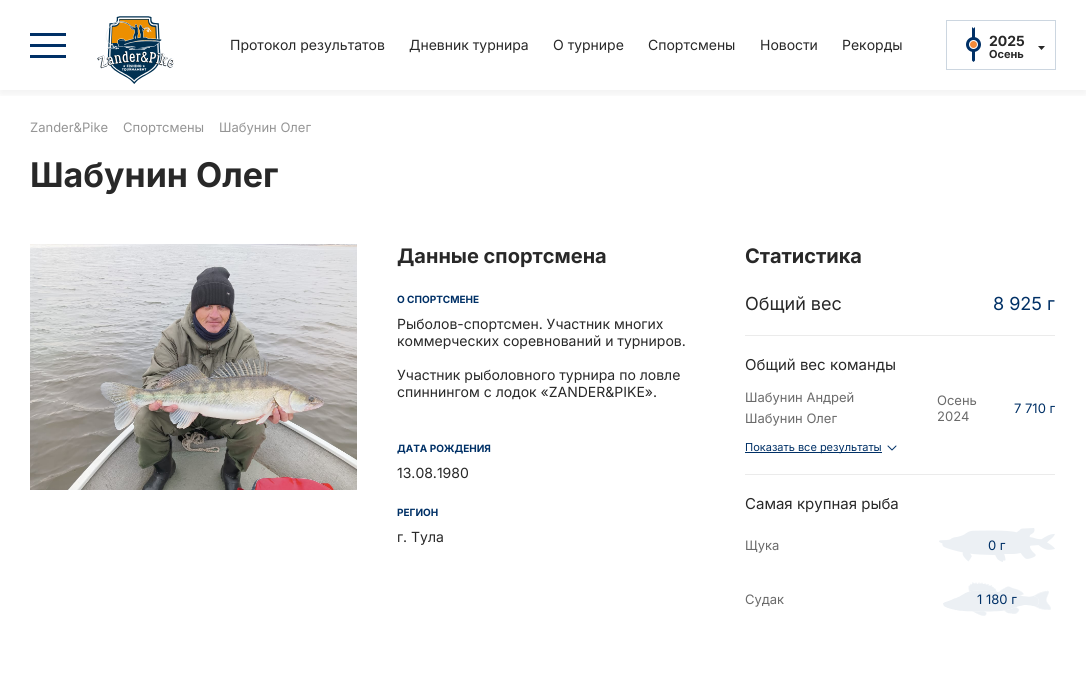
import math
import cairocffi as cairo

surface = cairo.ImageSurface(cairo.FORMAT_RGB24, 1086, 690)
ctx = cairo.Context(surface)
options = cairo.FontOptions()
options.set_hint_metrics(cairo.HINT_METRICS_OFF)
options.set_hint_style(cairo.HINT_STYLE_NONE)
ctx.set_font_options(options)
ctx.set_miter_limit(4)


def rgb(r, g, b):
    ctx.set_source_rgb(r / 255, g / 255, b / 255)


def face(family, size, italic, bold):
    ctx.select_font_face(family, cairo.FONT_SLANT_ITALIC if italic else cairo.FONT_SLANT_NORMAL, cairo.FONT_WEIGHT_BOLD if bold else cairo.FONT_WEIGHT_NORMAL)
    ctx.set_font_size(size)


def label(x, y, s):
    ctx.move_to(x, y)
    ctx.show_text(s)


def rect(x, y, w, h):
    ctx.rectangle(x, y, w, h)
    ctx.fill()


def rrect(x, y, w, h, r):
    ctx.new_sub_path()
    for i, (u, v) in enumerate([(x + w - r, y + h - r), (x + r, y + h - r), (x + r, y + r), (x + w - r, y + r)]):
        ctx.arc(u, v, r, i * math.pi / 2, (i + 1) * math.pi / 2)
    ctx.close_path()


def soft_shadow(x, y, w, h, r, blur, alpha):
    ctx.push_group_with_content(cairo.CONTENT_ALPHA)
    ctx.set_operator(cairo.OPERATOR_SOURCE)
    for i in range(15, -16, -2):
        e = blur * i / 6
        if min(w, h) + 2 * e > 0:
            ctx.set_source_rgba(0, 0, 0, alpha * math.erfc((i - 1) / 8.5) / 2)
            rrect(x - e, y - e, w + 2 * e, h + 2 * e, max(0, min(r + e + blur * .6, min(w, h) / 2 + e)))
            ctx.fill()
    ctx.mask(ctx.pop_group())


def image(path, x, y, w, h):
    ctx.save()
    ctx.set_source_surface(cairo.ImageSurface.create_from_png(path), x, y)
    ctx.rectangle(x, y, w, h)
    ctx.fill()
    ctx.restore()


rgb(255, 255, 255)
ctx.paint()
ctx.save()
ctx.rectangle(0, 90, 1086, 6)
ctx.clip()
rgb(0, 0, 0)
soft_shadow(0, 4, 1086, 90, 0, 5, 0.06)
ctx.restore()
rgb(0, 48, 102)
rect(30, 33, 36, 3)
rect(30, 44, 36, 3)
rect(30, 55, 36, 3)
image('image0.png', 97, 16, 78, 68)
face('Inter', 14, 0, 0)
rgb(40, 40, 40)
label(230, 50, 'Протокол результатов')
label(409, 50, 'Дневник турнира')
label(553, 50, 'О турнире')
label(648, 50, 'Спортсмены')
label(760, 50, 'Новости')
label(842, 50, 'Рекорды')
ctx.rectangle(946.5, 20.5, 109, 49)
rgb(204, 214, 224)
ctx.set_line_width(1)
ctx.stroke()
image('image1.png', 966, 27, 15, 35)
rgb(40, 40, 40)
ctx.new_path()
ctx.move_to(1045, 46)
ctx.line_to(1038, 46)
ctx.line_to(1041.5, 50)
ctx.close_path()
ctx.fill()
face('Inter', 14, 0, 1)
label(989, 46, '2025')
face('Inter', 11, 0, 1)
label(989, 58, 'Осень')
face('Inter', 13, 0, 0)
rgb(149, 149, 149)
label(30, 132, 'Zander&Pike')
label(123, 132, 'Спортсмены')
label(219, 132, 'Шабунин Олег')
face('Inter', 34, 0, 1)
rgb(40, 40, 40)
label(30, 187, 'Шабунин Олег')
image('image2.png', 30, 244, 327, 246)
face('Inter', 20, 0, 1)
label(397, 263, 'Данные спортсмена')
face('Inter', 10, 0, 1)
rgb(0, 48, 102)
label(397, 303, 'О СПОРТСМЕНЕ')
face('Inter', 14, 0, 0)
rgb(40, 40, 40)
label(397, 329, 'Рыболов-спортсмен. Участник многих')
label(397, 346, 'коммерческих соревнований и турниров.')
label(397, 380, 'Участник рыболовного турнира по ловле')
label(397, 397, 'спиннингом с лодок «ZANDER&PIKE».')
face('Inter', 10, 0, 1)
rgb(0, 48, 102)
label(397, 452, 'ДАТА РОЖДЕНИЯ')
face('Inter', 14, 0, 0)
rgb(40, 40, 40)
label(397, 478, '13.08.1980')
face('Inter', 10, 0, 1)
rgb(0, 48, 102)
label(397, 516, 'РЕГИОН')
face('Inter', 14, 0, 0)
rgb(40, 40, 40)
label(397, 542, 'г. Тула')
face('Inter', 20, 0, 1)
label(745, 263, 'Статистика')
face('Inter', 18, 0, 0)
label(745, 310, 'Общий вес')
rgb(0, 48, 102)
label(993, 310, '8 925 г')
rgb(235, 235, 235)
rect(745, 335, 310, 1)
face('Inter', 15, 0, 0)
rgb(40, 40, 40)
label(745, 370, 'Общий вес команды')
face('Inter', 13, 0, 0)
rgb(106, 106, 106)
label(745, 402, 'Шабунин Андрей')
label(745, 423, 'Шабунин Олег')
label(937, 405, 'Осень')
label(937, 421, '2024')
rgb(0, 48, 102)
label(1014, 413, '7 710 г')
ctx.new_path()
ctx.move_to(888, 446)
ctx.line_to(892, 450)
ctx.line_to(896, 446)
ctx.set_line_cap(cairo.LINE_CAP_ROUND)
ctx.set_line_join(cairo.LINE_JOIN_ROUND)
ctx.stroke()
rect(745, 452, 137, 1)
face('Inter', 11, 0, 0)
label(745, 451, 'Показать все результаты')
rgb(235, 235, 235)
rect(745, 474, 310, 1)
face('Inter', 15, 0, 0)
rgb(40, 40, 40)
label(745, 509, 'Самая крупная рыба')
face('Inter', 13, 0, 0)
rgb(106, 106, 106)
label(745, 550, 'Щука')
image('image3.png', 939, 528, 116, 34)
rgb(0, 48, 102)
label(988, 550, '0 г')
rgb(106, 106, 106)
label(745, 604, 'Судак')
image('image4.png', 943, 582, 108, 34)
rgb(0, 48, 102)
label(977, 604, '1 180 г')
surface.write_to_png('render.png')
